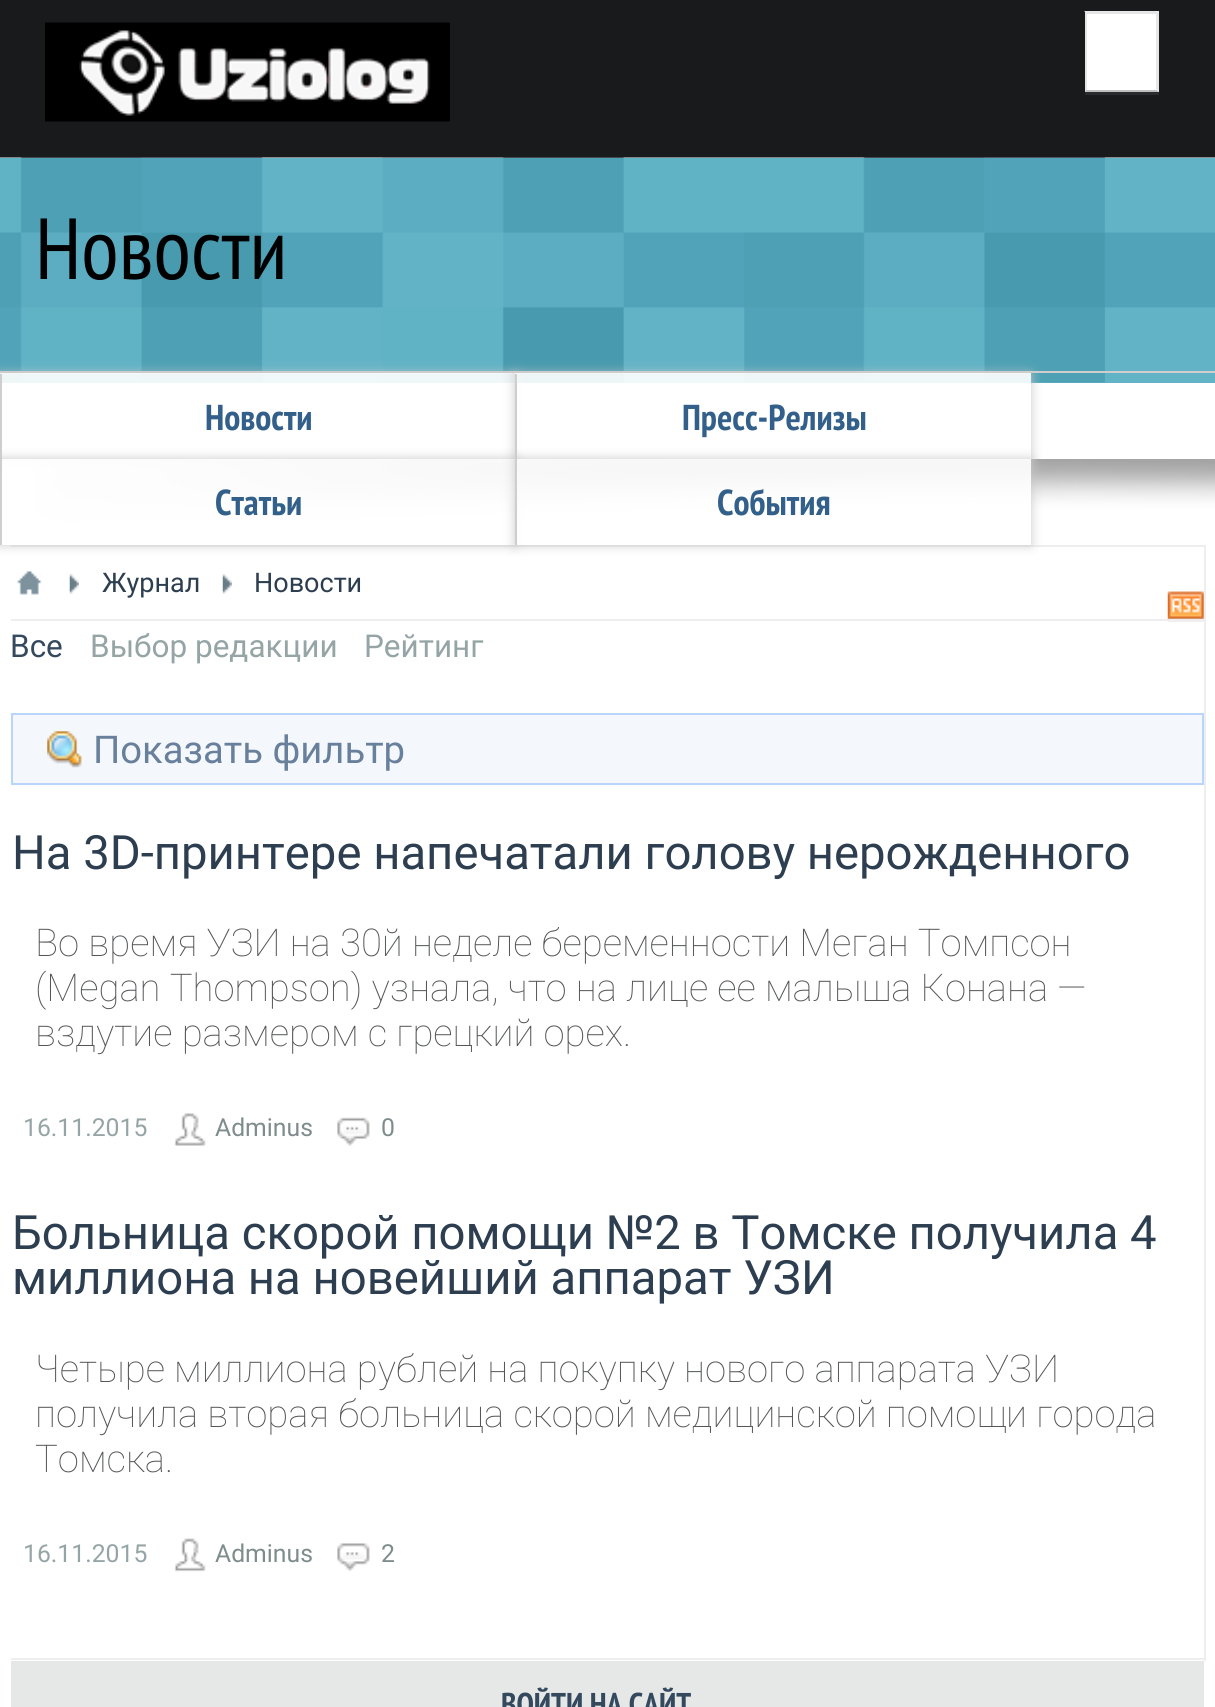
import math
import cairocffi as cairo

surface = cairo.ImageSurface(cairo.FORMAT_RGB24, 1215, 1707)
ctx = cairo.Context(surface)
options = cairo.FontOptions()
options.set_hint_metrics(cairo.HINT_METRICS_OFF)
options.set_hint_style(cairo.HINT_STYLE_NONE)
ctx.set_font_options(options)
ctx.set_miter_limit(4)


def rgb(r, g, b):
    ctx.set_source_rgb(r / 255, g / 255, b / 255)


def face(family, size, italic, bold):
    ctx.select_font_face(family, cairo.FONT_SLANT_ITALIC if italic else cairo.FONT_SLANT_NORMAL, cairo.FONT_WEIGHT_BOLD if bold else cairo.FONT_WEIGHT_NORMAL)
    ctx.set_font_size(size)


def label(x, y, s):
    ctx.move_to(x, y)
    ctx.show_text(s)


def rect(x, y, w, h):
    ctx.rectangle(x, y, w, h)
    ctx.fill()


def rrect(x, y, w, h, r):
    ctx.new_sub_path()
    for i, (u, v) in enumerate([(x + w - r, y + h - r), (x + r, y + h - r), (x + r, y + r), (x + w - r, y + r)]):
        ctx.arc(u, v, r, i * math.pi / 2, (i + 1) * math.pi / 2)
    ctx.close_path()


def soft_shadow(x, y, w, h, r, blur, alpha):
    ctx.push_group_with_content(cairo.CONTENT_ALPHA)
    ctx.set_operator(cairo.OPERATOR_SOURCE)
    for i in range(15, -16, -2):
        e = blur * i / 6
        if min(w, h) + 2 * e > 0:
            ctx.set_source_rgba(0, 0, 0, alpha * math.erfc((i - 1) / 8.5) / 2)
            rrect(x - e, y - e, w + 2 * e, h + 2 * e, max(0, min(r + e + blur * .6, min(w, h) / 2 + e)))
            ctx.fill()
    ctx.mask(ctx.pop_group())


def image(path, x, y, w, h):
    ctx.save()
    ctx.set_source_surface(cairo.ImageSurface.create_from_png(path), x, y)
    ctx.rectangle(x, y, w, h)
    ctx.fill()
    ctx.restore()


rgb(255, 255, 255)
ctx.paint()
rgb(99, 179, 198)
rect(2, 382, 1213, 1)
rgb(24, 26, 28)
rect(0, 0, 1215, 158)
image('image0.png', 45, 22, 405, 100)
rgb(41, 43, 45)
ctx.new_path()
ctx.move_to(1085, 92)
ctx.line_to(1085, 95)
ctx.line_to(1159, 95)
ctx.line_to(1159, 14)
ctx.line_to(1159, 92)
ctx.close_path()
ctx.fill()
rgb(255, 255, 255)
rect(1085, 11, 74, 81)
rgb(230, 230, 230)
ctx.new_path()
ctx.move_to(1084, 11)
ctx.line_to(1159, 11)
ctx.line_to(1156, 14)
ctx.line_to(1087, 14)
ctx.close_path()
ctx.fill()
ctx.set_source_rgba(0, 0, 0, 0.1)
ctx.new_path()
ctx.move_to(1159, 11)
ctx.line_to(1159, 92)
ctx.line_to(1156, 90)
ctx.line_to(1156, 14)
ctx.close_path()
ctx.fill()
ctx.set_source_rgba(0, 0, 0, 0.25)
ctx.new_path()
ctx.move_to(1159, 92)
ctx.line_to(1084, 92)
ctx.line_to(1087, 90)
ctx.line_to(1156, 90)
ctx.close_path()
ctx.fill()
ctx.set_source_rgba(0, 0, 0, 0.1)
ctx.new_path()
ctx.move_to(1084, 92)
ctx.line_to(1084, 11)
ctx.line_to(1087, 14)
ctx.line_to(1087, 90)
ctx.close_path()
ctx.fill()
image('image1.png', 0, 157, 1215, 226)
rgb(238, 238, 238)
rect(11, 545, 1195, 2)
rect(1204, 545, 2, 1116)
rect(11, 1658, 1195, 2)
face('PT Sans Narrow', 86.5, 0, 0)
rgb(0, 0, 0)
label(35, 279, 'Новости')
image('image2.png', 1167, 591, 37, 31)
face('Roboto', 31.5, 0, 0)
rgb(52, 73, 94)
label(10, 657, 'Все')
rgb(149, 165, 166)
label(90, 657, 'Выбор редакции')
label(364, 657, 'Рейтинг')
rgb(244, 248, 253)
ctx.rectangle(12, 714, 1191, 70)
ctx.fill_preserve()
rgb(184, 214, 251)
ctx.stroke()
image('image3.png', 47, 731, 35, 37)
face('Roboto', 38.25, 0, 0)
rgb(104, 128, 155)
label(93, 763, 'Показать фильтр')
face('Roboto', 47.25, 0, 0)
rgb(44, 62, 80)
label(12, 869, 'На 3D-принтере напечатали голову нерожденного')
face('Roboto Thin', 38.25, 0, 0)
rgb(84, 86, 88)
label(35, 956, 'Во время УЗИ на 30й неделе беременности Меган Томпсон')
label(35, 1001, '(Megan Thompson) узнала, что на лице ее малыша Конана —')
label(35, 1046, 'вздутие размером с грецкий орех.')
face('Roboto', 24.75, 0, 0)
rgb(149, 165, 166)
label(23, 1136, '16.11.2015')
image('image4.png', 174, 1113, 32, 33)
rgb(127, 140, 141)
label(215, 1136, 'Adminus')
image('image5.png', 337, 1117, 33, 29)
label(381, 1136, '0')
face('Roboto', 47.25, 0, 0)
rgb(44, 62, 80)
label(12, 1249, 'Больница скорой помощи №2 в Томске получила 4')
label(12, 1294, 'миллиона на новейший аппарат УЗИ')
face('Roboto Thin', 38.25, 0, 0)
rgb(84, 86, 88)
label(35, 1382, 'Четыре миллиона рублей на покупку нового аппарата УЗИ')
label(35, 1427, 'получила вторая больница скорой медицинской помощи города')
label(35, 1472, 'Томска.')
face('Roboto', 24.75, 0, 0)
rgb(149, 165, 166)
label(23, 1562, '16.11.2015')
image('image6.png', 174, 1538, 32, 34)
rgb(127, 140, 141)
label(215, 1562, 'Adminus')
image('image7.png', 337, 1543, 33, 28)
label(381, 1562, '2')
rgb(238, 238, 238)
rect(11, 619, 1193, 2)
image('image8.png', 17, 571, 25, 24)
image('image9.png', 69, 573, 10, 21)
face('Roboto', 27, 0, 0)
rgb(44, 62, 80)
label(102, 592, 'Журнал')
image('image9.png', 222, 573, 10, 21)
label(254, 592, 'Новости')
rgb(230, 231, 231)
rect(11, 1661, 1193, 46)
face('PT Sans Narrow', 31.5, 0, 1)
rgb(52, 73, 94)
label(501, 1715, 'ВОЙТИ НА САЙТ')
image('image10.png', 33, 459, 1182, 64)
rgb(206, 206, 206)
rect(0, 371, 1215, 2)
ctx.save()
ctx.set_fill_rule(cairo.FILL_RULE_EVEN_ODD)
ctx.new_path()
ctx.move_to(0, 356)
ctx.line_to(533, 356)
ctx.line_to(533, 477)
ctx.line_to(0, 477)
ctx.close_path()
ctx.move_to(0, 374)
ctx.line_to(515, 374)
ctx.line_to(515, 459)
ctx.line_to(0, 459)
ctx.close_path()
ctx.clip()
rgb(201, 201, 201)
soft_shadow(0, 374, 515, 85, 0, 5.5, 1)
ctx.restore()
ctx.set_source_rgba(1, 1, 1, 0.9)
rect(0, 373, 516, 78)
rgb(206, 206, 206)
rect(0, 374, 2, 85)
face('PT Sans Narrow', 36, 0, 1)
rgb(51, 96, 138)
label(205, 430, 'Новости')
ctx.save()
ctx.set_fill_rule(cairo.FILL_RULE_EVEN_ODD)
ctx.new_path()
ctx.move_to(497, 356)
ctx.line_to(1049, 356)
ctx.line_to(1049, 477)
ctx.line_to(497, 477)
ctx.close_path()
ctx.move_to(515, 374)
ctx.line_to(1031, 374)
ctx.line_to(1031, 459)
ctx.line_to(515, 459)
ctx.close_path()
ctx.clip()
rgb(201, 201, 201)
soft_shadow(515, 374, 516, 85, 0, 5.5, 1)
ctx.restore()
ctx.set_source_rgba(1, 1, 1, 0.9)
rect(515, 373, 516, 86)
rgb(206, 206, 206)
rect(515, 374, 2, 85)
rgb(51, 96, 138)
label(682, 430, 'Пресс-Релизы')
ctx.save()
ctx.set_fill_rule(cairo.FILL_RULE_EVEN_ODD)
ctx.new_path()
ctx.move_to(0, 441)
ctx.line_to(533, 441)
ctx.line_to(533, 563)
ctx.line_to(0, 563)
ctx.close_path()
ctx.move_to(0, 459)
ctx.line_to(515, 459)
ctx.line_to(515, 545)
ctx.line_to(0, 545)
ctx.close_path()
ctx.clip()
rgb(201, 201, 201)
soft_shadow(0, 459, 515, 86, 0, 5.5, 1)
ctx.restore()
ctx.set_source_rgba(1, 1, 1, 0.9)
rect(2, 459, 513, 86)
rgb(206, 206, 206)
rect(0, 459, 2, 86)
rgb(51, 96, 138)
label(215, 515, 'Статьи')
ctx.save()
ctx.set_fill_rule(cairo.FILL_RULE_EVEN_ODD)
ctx.new_path()
ctx.move_to(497, 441)
ctx.line_to(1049, 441)
ctx.line_to(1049, 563)
ctx.line_to(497, 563)
ctx.close_path()
ctx.move_to(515, 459)
ctx.line_to(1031, 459)
ctx.line_to(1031, 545)
ctx.line_to(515, 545)
ctx.close_path()
ctx.clip()
rgb(201, 201, 201)
soft_shadow(515, 459, 516, 86, 0, 5.5, 1)
ctx.restore()
ctx.set_source_rgba(1, 1, 1, 0.9)
rect(517, 459, 514, 86)
rgb(206, 206, 206)
rect(515, 459, 2, 86)
rgb(51, 96, 138)
label(717, 515, 'Cобытия')
surface.write_to_png('render.png')
